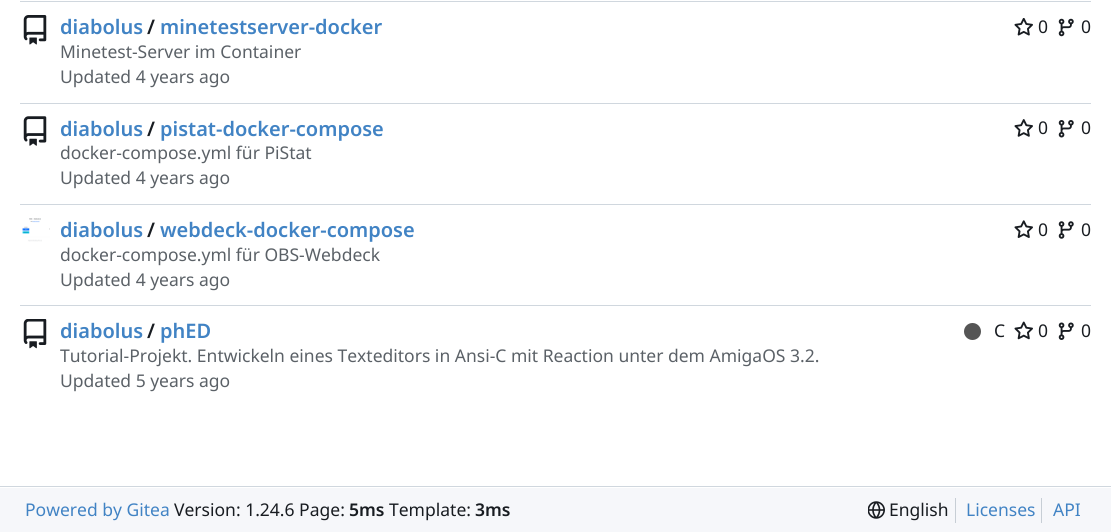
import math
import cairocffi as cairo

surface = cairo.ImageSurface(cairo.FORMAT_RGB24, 1111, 532)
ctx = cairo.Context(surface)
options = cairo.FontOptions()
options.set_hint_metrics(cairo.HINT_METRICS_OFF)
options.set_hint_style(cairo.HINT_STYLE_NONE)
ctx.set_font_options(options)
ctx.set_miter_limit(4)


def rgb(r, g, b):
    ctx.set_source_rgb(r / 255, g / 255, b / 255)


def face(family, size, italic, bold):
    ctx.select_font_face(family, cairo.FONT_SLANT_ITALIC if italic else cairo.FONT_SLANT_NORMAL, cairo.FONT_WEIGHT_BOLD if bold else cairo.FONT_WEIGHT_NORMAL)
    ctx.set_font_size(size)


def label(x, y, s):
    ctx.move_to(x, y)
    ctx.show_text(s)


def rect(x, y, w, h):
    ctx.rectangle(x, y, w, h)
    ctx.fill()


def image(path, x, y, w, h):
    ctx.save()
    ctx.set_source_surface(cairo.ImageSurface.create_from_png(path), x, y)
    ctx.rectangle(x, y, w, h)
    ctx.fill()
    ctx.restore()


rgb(255, 255, 255)
ctx.paint()
rgb(208, 215, 222)
rect(20, 1, 1071, 1)
image('image0.png', 23, 15, 24, 30)
face('Noto Sans SemiBold', 20, 0, 0)
rgb(65, 131, 196)
label(60, 34, 'diabolus')
rgb(24, 28, 33)
label(147, 34, '/')
rgb(65, 131, 196)
label(160, 34, 'minetestserver-docker')
image('image1.png', 1014, 18, 19, 18)
face('Noto Sans', 17.5, 0, 0)
rgb(24, 28, 33)
label(1038, 33, '0')
image('image2.png', 1058, 18, 16, 19)
label(1081, 33, '0')
rgb(91, 97, 103)
label(60, 58, 'Minetest-Server im Container')
label(60, 83, 'Updated 4 years ago')
rgb(208, 215, 222)
rect(20, 103, 1071, 1)
image('image3.png', 23, 116, 24, 30)
face('Noto Sans SemiBold', 20, 0, 0)
rgb(65, 131, 196)
label(60, 136, 'diabolus')
rgb(24, 28, 33)
label(147, 136, '/')
rgb(65, 131, 196)
label(160, 136, 'pistat-docker-compose')
image('image4.png', 1014, 119, 19, 18)
face('Noto Sans', 17.5, 0, 0)
rgb(24, 28, 33)
label(1038, 134, '0')
image('image5.png', 1058, 120, 16, 18)
label(1081, 134, '0')
rgb(91, 97, 103)
label(60, 159, 'docker-compose.yml für PiStat')
label(60, 184, 'Updated 4 years ago')
rgb(208, 215, 222)
rect(20, 204, 1071, 1)
image('image6.png', 22, 218, 28, 24)
face('Noto Sans SemiBold', 20, 0, 0)
rgb(65, 131, 196)
label(60, 237, 'diabolus')
rgb(24, 28, 33)
label(147, 237, '/')
rgb(65, 131, 196)
label(160, 237, 'webdeck-docker-compose')
image('image7.png', 1014, 220, 19, 18)
face('Noto Sans', 17.5, 0, 0)
rgb(24, 28, 33)
label(1038, 236, '0')
image('image8.png', 1058, 221, 16, 18)
label(1081, 236, '0')
rgb(91, 97, 103)
label(60, 261, 'docker-compose.yml für OBS-Webdeck')
label(60, 286, 'Updated 4 years ago')
rgb(208, 215, 222)
rect(20, 305, 1071, 1)
image('image9.png', 23, 319, 24, 30)
face('Noto Sans SemiBold', 20, 0, 0)
rgb(65, 131, 196)
label(60, 338, 'diabolus')
rgb(24, 28, 33)
label(147, 338, '/')
rgb(65, 131, 196)
label(160, 338, 'phED')
rgb(85, 85, 85)
ctx.new_path()
ctx.arc(972.5, 331.5, 8.5, 0, 2 * math.pi)
ctx.fill()
face('Noto Sans', 17.5, 0, 0)
rgb(24, 28, 33)
label(994, 337, 'C')
image('image10.png', 1014, 321, 19, 19)
label(1038, 337, '0')
image('image11.png', 1058, 322, 16, 18)
label(1081, 337, '0')
rgb(91, 97, 103)
label(60, 362, 'Tutorial-Projekt. Entwickeln eines Texteditors in Ansi-C mit Reaction unter dem AmigaOS 3.2.')
label(60, 387, 'Updated 5 years ago')
rgb(246, 247, 250)
rect(0, 488, 1111, 44)
rgb(208, 215, 222)
rect(0, 486, 1111, 1)
rgb(65, 131, 196)
label(25, 516, 'Powered by Gitea')
rgb(24, 28, 33)
label(174, 516, 'Version: 1.24.6 Page:')
face('Noto Sans SemiBold', 17.5, 0, 0)
label(349, 516, '5ms')
face('Noto Sans', 17.5, 0, 0)
label(389, 516, 'Template:')
face('Noto Sans SemiBold', 17.5, 0, 0)
label(475, 516, '3ms')
image('image12.png', 868, 501, 17, 18)
face('Noto Sans', 17.5, 0, 0)
label(889, 516, 'English')
rgb(199, 206, 213)
rect(955, 498, 1, 25)
rgb(65, 131, 196)
label(966, 516, 'Licenses')
rgb(199, 206, 213)
rect(1041, 498, 1, 25)
rgb(65, 131, 196)
label(1053, 516, 'API')
surface.write_to_png('render.png')
